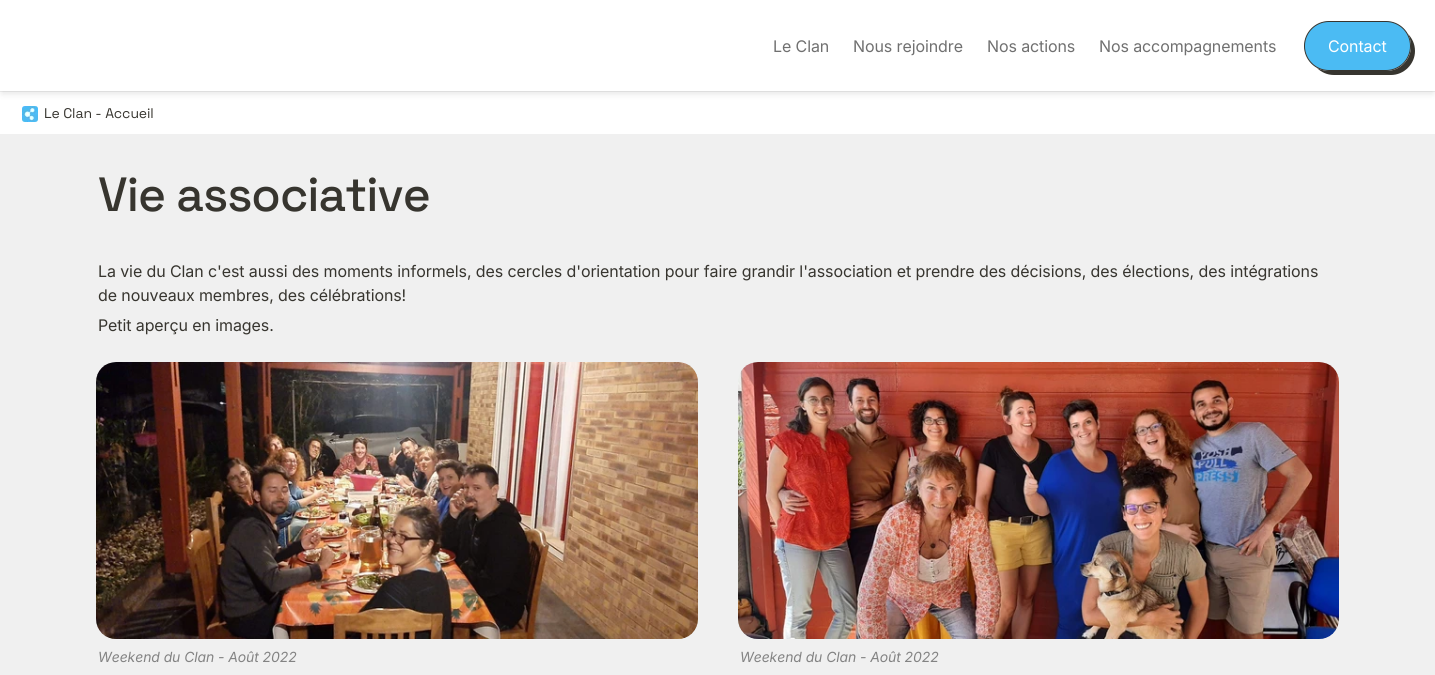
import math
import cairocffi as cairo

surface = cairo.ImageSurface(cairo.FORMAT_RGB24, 1435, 675)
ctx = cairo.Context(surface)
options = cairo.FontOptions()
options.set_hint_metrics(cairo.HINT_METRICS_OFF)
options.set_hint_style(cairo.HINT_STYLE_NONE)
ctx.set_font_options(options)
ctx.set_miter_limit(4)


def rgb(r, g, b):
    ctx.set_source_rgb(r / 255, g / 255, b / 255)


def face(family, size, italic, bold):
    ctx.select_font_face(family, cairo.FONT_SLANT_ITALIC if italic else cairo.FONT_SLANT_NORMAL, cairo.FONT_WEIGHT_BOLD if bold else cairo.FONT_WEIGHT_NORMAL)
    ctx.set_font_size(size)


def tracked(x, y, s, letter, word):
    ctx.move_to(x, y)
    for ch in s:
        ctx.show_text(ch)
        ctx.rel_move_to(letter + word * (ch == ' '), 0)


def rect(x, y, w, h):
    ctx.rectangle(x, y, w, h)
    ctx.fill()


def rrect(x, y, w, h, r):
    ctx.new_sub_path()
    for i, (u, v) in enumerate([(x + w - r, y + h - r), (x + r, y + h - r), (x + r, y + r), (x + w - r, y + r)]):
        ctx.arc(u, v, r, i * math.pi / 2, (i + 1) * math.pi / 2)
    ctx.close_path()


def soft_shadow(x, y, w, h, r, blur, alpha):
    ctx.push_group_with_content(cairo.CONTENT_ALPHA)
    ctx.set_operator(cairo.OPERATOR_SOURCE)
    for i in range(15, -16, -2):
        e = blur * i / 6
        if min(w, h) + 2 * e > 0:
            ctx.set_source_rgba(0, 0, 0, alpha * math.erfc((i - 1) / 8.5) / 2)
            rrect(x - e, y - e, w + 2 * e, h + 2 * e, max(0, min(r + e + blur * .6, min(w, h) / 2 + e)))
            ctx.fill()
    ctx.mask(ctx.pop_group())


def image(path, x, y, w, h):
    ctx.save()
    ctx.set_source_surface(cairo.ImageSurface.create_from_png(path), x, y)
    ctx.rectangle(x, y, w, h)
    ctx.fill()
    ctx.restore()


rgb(240, 240, 240)
ctx.paint()
rgb(255, 255, 255)
rect(0, 92, 1435, 42)
rgb(0, 0, 0)
soft_shadow(2, 6, 1431, 87, 0, 4, 0.12)
rgb(255, 255, 255)
rect(0, 0, 1435, 91)
face('Inter', 16, 0, 0)
rgb(112, 112, 112)
tracked(773, 52, 'Le Clan', -0.1, 0)
tracked(853, 52, 'Nous rejoindre', -0.1, 0)
tracked(987, 52, 'Nos actions', -0.1, 0)
tracked(1099, 52, 'Nos accompagnements', -0.1, 0)
rgb(55, 53, 47)
ctx.new_path()
ctx.move_to(1317, 68)
ctx.curve_to(1321, 72, 1327, 75, 1334, 75)
ctx.line_to(1391, 75)
ctx.curve_to(1404, 75, 1415, 64, 1415, 51)
ctx.curve_to(1415, 44, 1412, 38, 1408, 34)
ctx.curve_to(1410, 38, 1411, 42, 1411, 46)
ctx.curve_to(1411, 60, 1400, 71, 1386, 71)
ctx.line_to(1329, 71)
ctx.curve_to(1325, 71, 1321, 70, 1317, 68)
ctx.close_path()
ctx.fill()
rgb(75, 187, 243)
rrect(1304.5, 21.5, 106, 49, 24.5)
ctx.fill_preserve()
rgb(55, 53, 47)
ctx.set_line_width(1)
ctx.stroke()
rgb(255, 255, 255)
tracked(1328, 52, 'Contact', -0.1, 0)
image('image0.png', 22, 106, 16, 16)
face('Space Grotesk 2 Light', 14, 0, 0)
rgb(55, 53, 47)
tracked(44, 118, 'Le Clan - Accueil', -0.1, 0)
face('Space Grotesk Light', 48, 0, 0)
tracked(98, 211, 'Vie associative', -1, 0)
face('Inter', 16, 0, 0)
tracked(98, 277, 'La vie du Clan c\'est aussi des moments informels, des cercles d\'orientation pour faire grandir l\'association et prendre des décisions, des élections, des intégrations', -0.1, 0)
tracked(98, 301, 'de nouveaux membres, des célébrations!', -0.1, 0)
tracked(98, 331, 'Petit aperçu en images.', -0.1, 0)
image('image1.png', 96, 362, 602, 277)
face('Inter', 14, 1, 0)
rgb(131, 131, 131)
tracked(98, 662, 'Weekend du Clan - Août 2022', -0.1, 0)
image('image2.png', 738, 362, 601, 277)
tracked(740, 662, 'Weekend du Clan - Août 2022', -0.1, 0)
surface.write_to_png('render.png')
